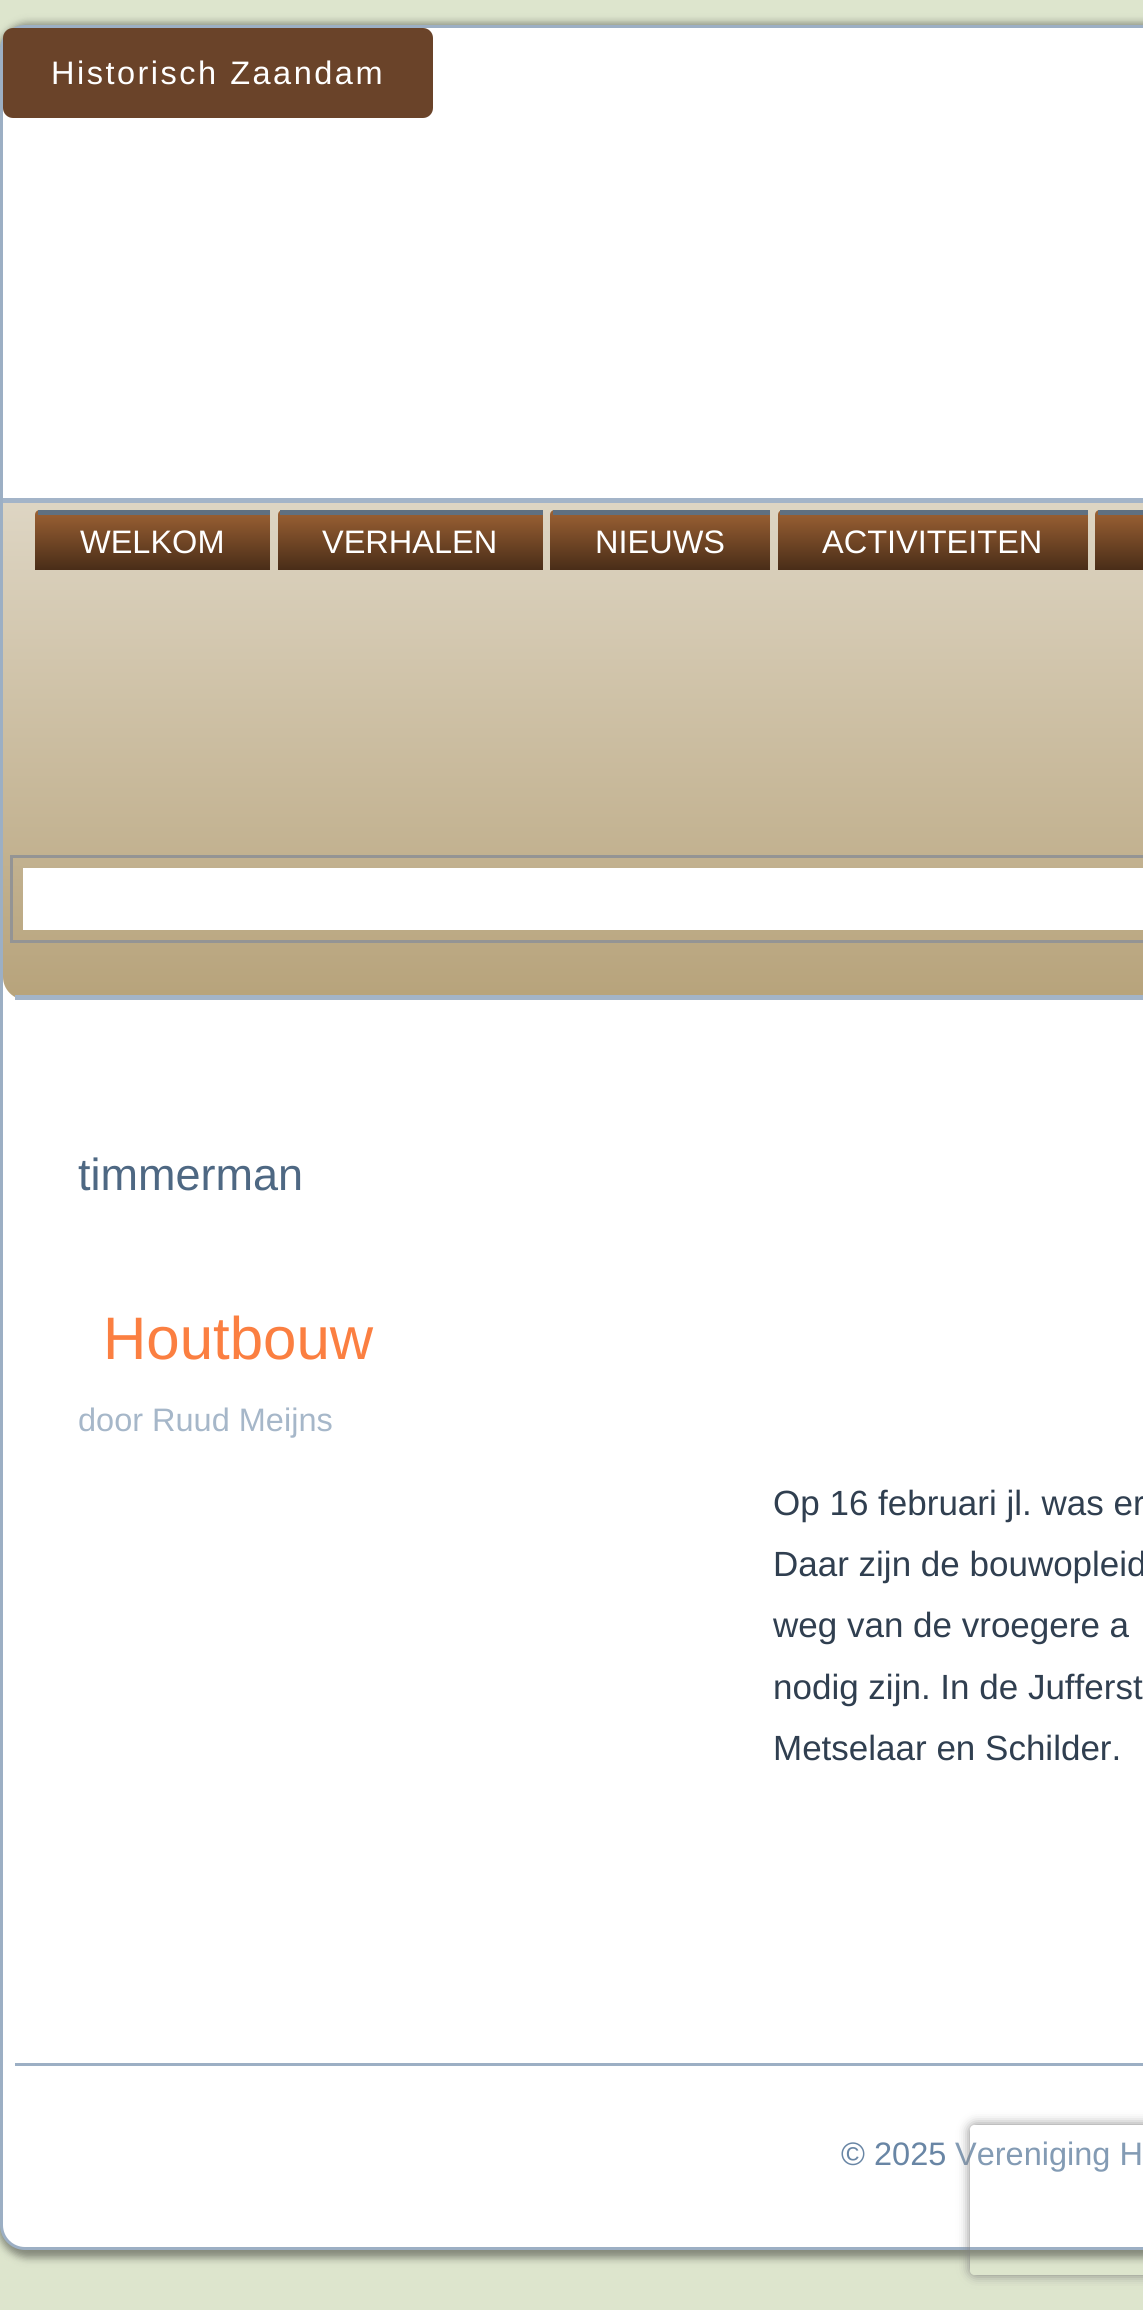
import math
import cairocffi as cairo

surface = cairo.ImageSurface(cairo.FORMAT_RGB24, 1143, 2310)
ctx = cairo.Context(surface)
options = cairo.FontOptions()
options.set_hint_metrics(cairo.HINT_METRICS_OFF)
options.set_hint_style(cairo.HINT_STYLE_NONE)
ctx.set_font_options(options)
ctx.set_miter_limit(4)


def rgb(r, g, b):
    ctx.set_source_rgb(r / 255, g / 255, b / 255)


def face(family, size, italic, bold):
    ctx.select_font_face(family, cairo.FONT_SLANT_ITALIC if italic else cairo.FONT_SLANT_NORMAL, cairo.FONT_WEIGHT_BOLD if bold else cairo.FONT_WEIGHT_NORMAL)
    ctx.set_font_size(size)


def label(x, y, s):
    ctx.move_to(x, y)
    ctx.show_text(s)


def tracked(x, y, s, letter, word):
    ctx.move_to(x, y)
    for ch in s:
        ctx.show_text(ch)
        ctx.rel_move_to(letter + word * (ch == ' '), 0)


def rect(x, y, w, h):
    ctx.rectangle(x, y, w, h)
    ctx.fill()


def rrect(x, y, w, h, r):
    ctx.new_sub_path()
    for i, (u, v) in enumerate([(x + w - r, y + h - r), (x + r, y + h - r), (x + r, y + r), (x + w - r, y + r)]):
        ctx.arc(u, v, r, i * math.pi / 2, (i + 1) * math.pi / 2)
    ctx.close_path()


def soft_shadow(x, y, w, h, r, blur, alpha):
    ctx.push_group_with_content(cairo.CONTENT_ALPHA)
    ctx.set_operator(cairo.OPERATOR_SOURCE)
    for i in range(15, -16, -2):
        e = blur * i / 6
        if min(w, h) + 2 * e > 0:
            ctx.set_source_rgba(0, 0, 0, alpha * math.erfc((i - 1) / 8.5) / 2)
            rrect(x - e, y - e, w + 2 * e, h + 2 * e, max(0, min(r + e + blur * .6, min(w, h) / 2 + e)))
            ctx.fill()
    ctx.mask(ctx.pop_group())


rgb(221, 229, 205)
ctx.paint()
rgb(0, 0, 0)
soft_shadow(-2, 23, 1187, 2235, 30, 4, 0.4)
rgb(255, 255, 255)
rrect(1.5, 26.5, 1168, 2222, 23.5)
ctx.fill_preserve()
rgb(156, 175, 196)
ctx.set_line_width(3)
ctx.stroke()
rgb(106, 67, 41)
rrect(3, 28, 430, 90, 10)
ctx.fill()
face('Liberation Sans', 32.5, 0, 0)
rgb(255, 255, 255)
tracked(51, 84, 'Historisch Zaandam', 2.5, 0)
gradient = cairo.LinearGradient(1125, 497, 1125, 1000)
gradient.add_color_stop_rgba(0, 0.871, 0.839, 0.769, 1)
gradient.add_color_stop_rgba(1, 0.718, 0.639, 0.482, 1)
ctx.set_source(gradient)
ctx.new_path()
ctx.move_to(3, 498)
ctx.line_to(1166, 498)
ctx.line_to(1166, 977)
ctx.curve_to(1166, 989.5, 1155.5, 1000, 1143, 1000)
ctx.line_to(26, 1000)
ctx.curve_to(13.5, 1000, 3, 989.5, 3, 977)
ctx.close_path()
ctx.fill()
rgb(163, 180, 200)
rect(3, 498, 1140, 5)
rect(15, 995, 1128, 5)
gradient = cairo.LinearGradient(153, 510, 153, 570)
gradient.add_color_stop_rgba(0, 0.616, 0.384, 0.204, 1)
gradient.add_color_stop_rgba(1, 0.286, 0.176, 0.094, 1)
ctx.set_source(gradient)
ctx.new_path()
ctx.move_to(40, 510)
ctx.line_to(270, 510)
ctx.line_to(270, 570)
ctx.line_to(35, 570)
ctx.line_to(35, 515)
ctx.curve_to(35, 512, 37, 510, 40, 510)
ctx.close_path()
ctx.fill()
rgb(95, 112, 129)
rect(38, 510, 232, 5)
rgb(255, 255, 255)
label(80, 553, 'WELKOM')
gradient = cairo.LinearGradient(410, 510, 410, 570)
gradient.add_color_stop_rgba(0, 0.616, 0.384, 0.204, 1)
gradient.add_color_stop_rgba(1, 0.286, 0.176, 0.094, 1)
ctx.set_source(gradient)
ctx.new_path()
ctx.move_to(283, 510)
ctx.line_to(543, 510)
ctx.line_to(543, 570)
ctx.line_to(278, 570)
ctx.line_to(278, 515)
ctx.curve_to(278, 512, 280, 510, 283, 510)
ctx.close_path()
ctx.fill()
rgb(95, 112, 129)
rect(280, 510, 263, 5)
rgb(255, 255, 255)
label(322, 553, 'VERHALEN')
gradient = cairo.LinearGradient(660, 510, 660, 570)
gradient.add_color_stop_rgba(0, 0.616, 0.384, 0.204, 1)
gradient.add_color_stop_rgba(1, 0.286, 0.176, 0.094, 1)
ctx.set_source(gradient)
ctx.new_path()
ctx.move_to(555, 510)
ctx.line_to(770, 510)
ctx.line_to(770, 570)
ctx.line_to(550, 570)
ctx.line_to(550, 515)
ctx.curve_to(550, 512, 552, 510, 555, 510)
ctx.close_path()
ctx.fill()
rgb(95, 112, 129)
rect(553, 510, 217, 5)
rgb(255, 255, 255)
label(595, 553, 'NIEUWS')
gradient = cairo.LinearGradient(933, 510, 933, 570)
gradient.add_color_stop_rgba(0, 0.616, 0.384, 0.204, 1)
gradient.add_color_stop_rgba(1, 0.286, 0.176, 0.094, 1)
ctx.set_source(gradient)
ctx.new_path()
ctx.move_to(783, 510)
ctx.line_to(1088, 510)
ctx.line_to(1088, 570)
ctx.line_to(778, 570)
ctx.line_to(778, 515)
ctx.curve_to(778, 512, 780, 510, 783, 510)
ctx.close_path()
ctx.fill()
rgb(95, 112, 129)
rect(780, 510, 308, 5)
rgb(255, 255, 255)
label(822, 553, 'ACTIVITEITEN')
gradient = cairo.LinearGradient(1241, 510, 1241, 570)
gradient.add_color_stop_rgba(0, 0.616, 0.384, 0.204, 1)
gradient.add_color_stop_rgba(1, 0.286, 0.176, 0.094, 1)
ctx.set_source(gradient)
ctx.new_path()
ctx.move_to(1100, 510)
ctx.line_to(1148, 510)
ctx.line_to(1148, 570)
ctx.line_to(1095, 570)
ctx.line_to(1095, 515)
ctx.curve_to(1095, 512, 1097, 510, 1100, 510)
ctx.close_path()
ctx.fill()
rgb(95, 112, 129)
rect(1098, 510, 45, 5)
ctx.rectangle(11.5, 856.5, 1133, 85)
rgb(148, 148, 148)
ctx.stroke()
rgb(255, 255, 255)
rect(23, 868, 1120, 62)
face('Liberation Sans', 45, 0, 0)
rgb(78, 104, 131)
label(78, 1190, 'timmerman')
face('Liberation Sans', 60, 0, 0)
rgb(251, 127, 65)
label(103, 1359, 'Houtbouw')
face('Liberation Sans', 32.5, 0, 0)
rgb(166, 183, 201)
label(78, 1431, 'door Ruud Meijns')
face('Liberation Sans', 35, 0, 0)
rgb(48, 63, 80)
label(773, 1515, 'Op 16 februari jl. was er')
label(773, 1576, 'Daar zijn de bouwopleid')
label(773, 1637, 'weg van de vroegere a')
label(773, 1699, 'nodig zijn. In de Jufferst')
label(773, 1760, 'Metselaar en Schilder.')
rgb(156, 175, 196)
rect(15, 2063, 1128, 3)
face('Liberation Sans', 32.5, 0, 0)
rgb(105, 134, 165)
label(841, 2165, '© 2025')
rgb(131, 155, 180)
label(955, 2165, 'Vereniging H')
ctx.save()
ctx.set_fill_rule(cairo.FILL_RULE_EVEN_ODD)
ctx.new_path()
ctx.move_to(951, 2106)
ctx.line_to(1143, 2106)
ctx.line_to(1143, 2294)
ctx.line_to(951, 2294)
ctx.close_path()
ctx.move_to(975, 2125)
ctx.line_to(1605, 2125)
ctx.curve_to(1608, 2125, 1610, 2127, 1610, 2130)
ctx.line_to(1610, 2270)
ctx.curve_to(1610, 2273, 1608, 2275, 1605, 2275)
ctx.line_to(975, 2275)
ctx.curve_to(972, 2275, 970, 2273, 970, 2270)
ctx.line_to(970, 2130)
ctx.curve_to(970, 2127, 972, 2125, 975, 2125)
ctx.close_path()
ctx.clip()
rgb(128, 128, 128)
soft_shadow(970, 2125, 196, 150, 5, 6, 1)
ctx.restore()
surface.write_to_png('render.png')
